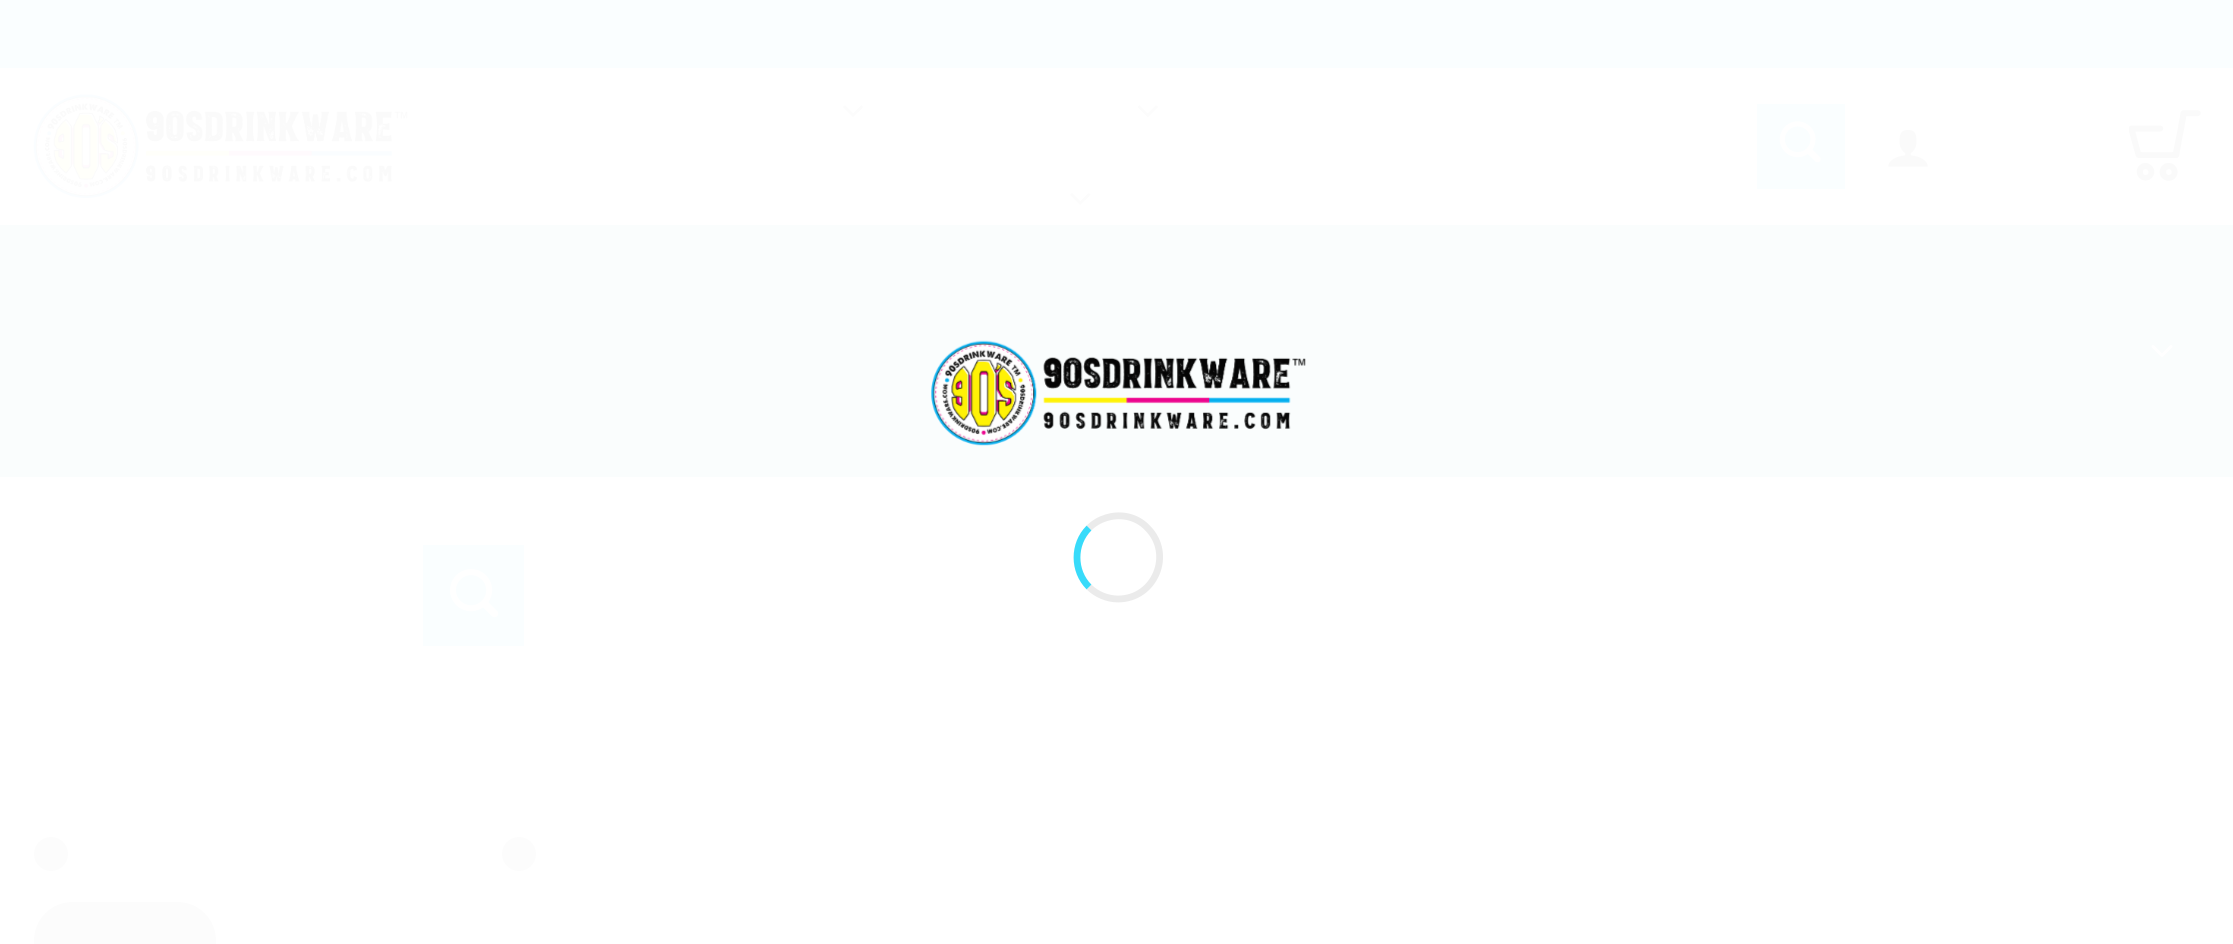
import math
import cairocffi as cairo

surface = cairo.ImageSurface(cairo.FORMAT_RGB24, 2233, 944)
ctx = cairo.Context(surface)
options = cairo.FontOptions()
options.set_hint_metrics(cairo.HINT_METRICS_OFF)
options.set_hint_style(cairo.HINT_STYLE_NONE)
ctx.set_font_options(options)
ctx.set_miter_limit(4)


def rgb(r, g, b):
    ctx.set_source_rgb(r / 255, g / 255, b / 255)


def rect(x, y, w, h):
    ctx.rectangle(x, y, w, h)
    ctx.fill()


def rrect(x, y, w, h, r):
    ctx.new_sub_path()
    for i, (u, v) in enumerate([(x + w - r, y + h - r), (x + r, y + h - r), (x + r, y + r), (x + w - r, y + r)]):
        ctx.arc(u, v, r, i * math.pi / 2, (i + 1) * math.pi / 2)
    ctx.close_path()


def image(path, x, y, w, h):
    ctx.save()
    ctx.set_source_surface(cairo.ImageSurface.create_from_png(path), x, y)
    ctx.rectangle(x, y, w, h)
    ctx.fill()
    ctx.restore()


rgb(255, 255, 255)
ctx.paint()
rgb(250, 254, 255)
rect(0, 0, 2233, 68)
image('image0.png', 33, 94, 375, 104)
image('image1.png', 843, 105, 20, 12)
image('image2.png', 1137, 105, 21, 12)
image('image3.png', 1070, 193, 21, 12)
ctx.rectangle(1758, 105, 86, 83)
ctx.fill_preserve()
ctx.stroke()
image('image4.png', 1779, 121, 42, 42)
image('image5.png', 1888, 129, 40, 38)
image('image6.png', 2129, 110, 72, 71)
rgb(250, 253, 253)
rect(0, 225, 2233, 252)
ctx.new_path()
ctx.move_to(2153, 346.5)
ctx.line_to(2162, 355.5)
ctx.line_to(2171, 346.5)
rgb(255, 255, 255)
ctx.set_line_width(3)
ctx.set_line_cap(cairo.LINE_CAP_ROUND)
ctx.set_line_join(cairo.LINE_JOIN_ROUND)
ctx.stroke()
image('image7.png', 931, 340, 375, 106)
ctx.new_path()
ctx.move_to(1089, 528)
ctx.curve_to(1098.5, 518.5, 1113, 514, 1126.5, 516.5)
ctx.curve_to(1134.5, 518, 1142, 522, 1147.5, 528)
ctx.curve_to(1173.5, 554, 1155, 599, 1118, 599)
ctx.curve_to(1107.5, 599, 1096.5, 594.5, 1089, 587)
rgb(235, 235, 235)
ctx.set_line_width(6.8)
ctx.set_line_cap(cairo.LINE_CAP_BUTT)
ctx.set_line_join(cairo.LINE_JOIN_MITER)
ctx.stroke()
ctx.new_path()
ctx.move_to(1089, 587)
ctx.curve_to(1073, 571, 1073, 544, 1089, 528)
ctx.set_source_rgba(0, 0.82, 0.976, 0.78)
ctx.stroke()
rgb(250, 254, 255)
ctx.rectangle(424, 546, 99, 99)
ctx.fill_preserve()
ctx.set_line_width(2)
ctx.stroke()
image('image8.png', 450, 569, 49, 49)
rgb(252, 252, 252)
ctx.arc(51, 854, 17, 0, 2 * math.pi)
ctx.fill()
ctx.arc(519, 854, 17, 0, 2 * math.pi)
ctx.fill()
rrect(34, 902, 182, 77, 38.5)
ctx.fill()
surface.write_to_png('render.png')
